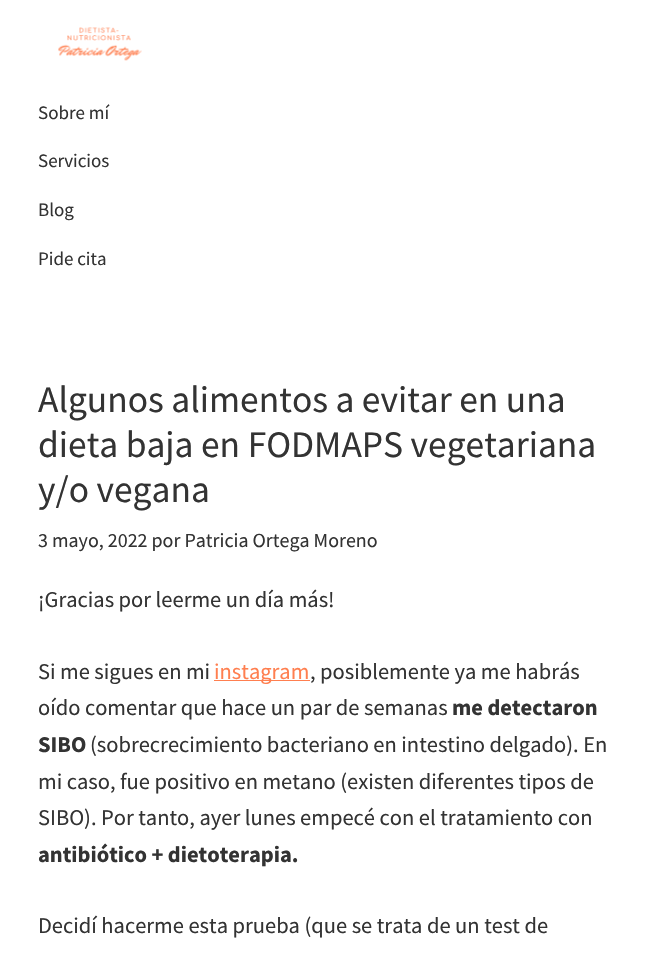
void draw(SkCanvas* canvas) {
  SkPaint paint;
  paint.setAntiAlias(true);
  auto face = [&](const char* family, int weight, float size, bool italic = false) {
    SkFontStyle style(weight, SkFontStyle::kNormal_Width,
      italic ? SkFontStyle::kItalic_Slant : SkFontStyle::kUpright_Slant);
    SkFont result(fontMgr->matchFamilyStyle(family, style), size);
    result.setSubpixel(true);
    return result;
  };
  auto paste = [&](const char* path, float x, float y, float w, float h) {
    auto image = SkImages::DeferredFromEncodedData(SkData::MakeFromFileName(path));
    canvas->drawImageRect(image, SkRect::MakeXYWH(x, y, w, h), SkSamplingOptions());
  };
  canvas->clear(0xffffffff);
  paste("img/1.png", 58, 27, 84, 34);
  paint.setColor(0xffff7f50);
  canvas->drawRect(SkRect::MakeXYWH(214, 680, 96, 1), paint);
  auto f0 = face("Source Sans Pro", 400, 19);
  paint.setColor(0xff333333);
  {
    const struct { const char* s; float x, y; } items[] = {
      {"Sobre mí", 38, 119},
      {"Servicios", 38, 167},
      {"Blog", 38, 216},
      {"Pide cita", 38, 265},
    };
    for (auto [s, x, y] : items) {
      canvas->drawString(s, x, y, f0, paint);
    }
  }
  auto f1 = face("Source Sans Pro", 400, 37.5f);
  {
    const struct { const char* s; float x, y; } items[] = {
      {"Algunos alimentos a evitar en una", 38, 412},
      {"dieta baja en FODMAPS vegetariana", 38, 457},
      {"y/o vegana", 38, 502},
    };
    for (auto [s, x, y] : items) {
      canvas->drawString(s, x, y, f1, paint);
    }
  }
  auto f2 = face("Source Sans Pro", 400, 20);
  canvas->drawString("3 mayo, 2022 por Patricia Ortega Moreno", 38, 547, f2, paint);
  auto f3 = face("Source Sans Pro", 400, 22.5f);
  canvas->drawString("¡Gracias por leerme un día más!", 38, 607, f3, paint);
  canvas->drawString("Si me sigues en mi", 38, 679, f3, paint);
  paint.setColor(0xffff7f50);
  canvas->drawString("instagram", 214, 679, f3, paint);
  paint.setColor(0xff333333);
  canvas->drawString(", posiblemente ya me habrás", 310, 679, f3, paint);
  canvas->drawString("oído comentar que hace un par de semanas", 38, 715, f3, paint);
  auto f4 = face("Source Sans Pro", 700, 22.5f);
  canvas->drawString("me detectaron", 452, 715, f4, paint);
  canvas->drawString("SIBO", 38, 752, f4, paint);
  {
    const struct { const char* s; float x, y; } items[] = {
      {"(sobrecrecimiento bacteriano en intestino delgado). En", 90, 752},
      {"mi caso, fue positivo en metano (existen diferentes tipos de", 38, 789},
      {"SIBO). Por tanto, ayer lunes empecé con el tratamiento con", 38, 825},
    };
    for (auto [s, x, y] : items) {
      canvas->drawString(s, x, y, f3, paint);
    }
  }
  canvas->drawString("antibiótico + dietoterapia.", 38, 862, f4, paint);
  canvas->drawString("Decidí hacerme esta prueba (que se trata de un test de", 38, 933, f3, paint);
}
